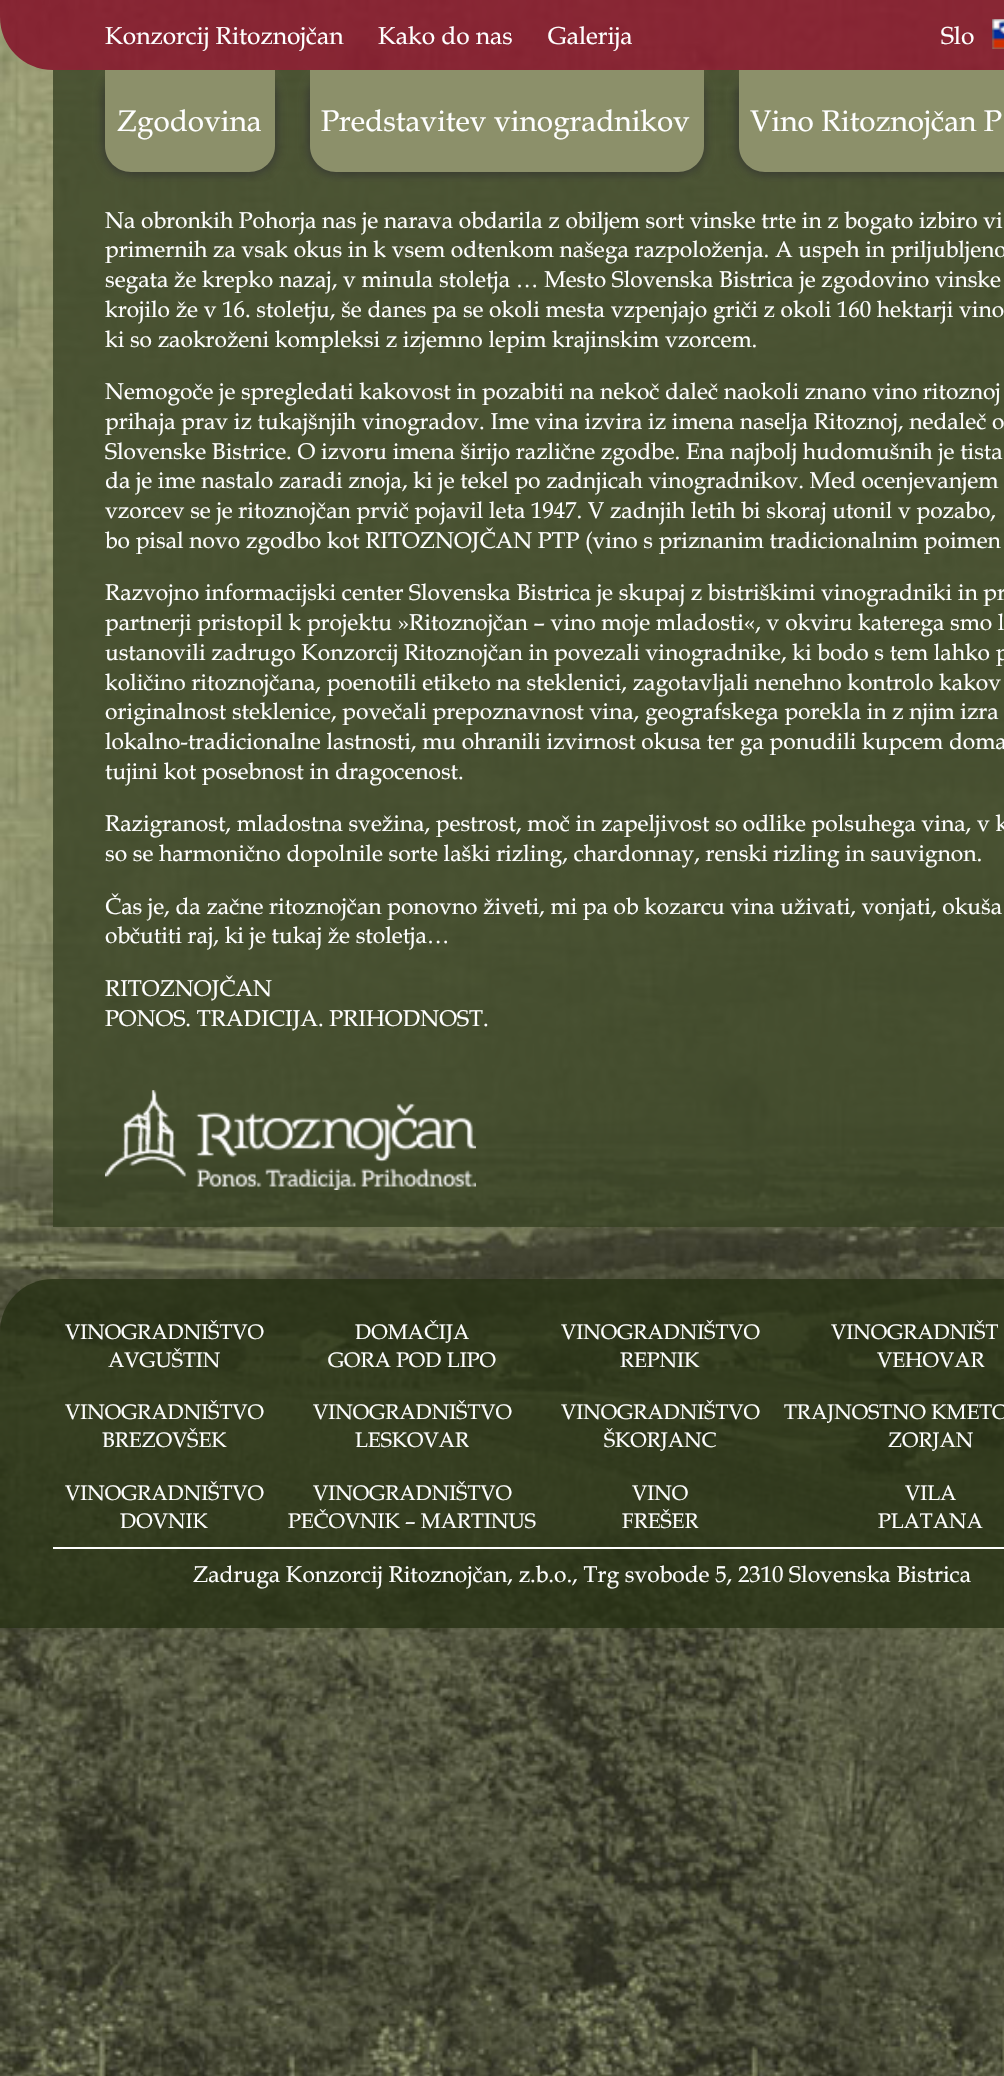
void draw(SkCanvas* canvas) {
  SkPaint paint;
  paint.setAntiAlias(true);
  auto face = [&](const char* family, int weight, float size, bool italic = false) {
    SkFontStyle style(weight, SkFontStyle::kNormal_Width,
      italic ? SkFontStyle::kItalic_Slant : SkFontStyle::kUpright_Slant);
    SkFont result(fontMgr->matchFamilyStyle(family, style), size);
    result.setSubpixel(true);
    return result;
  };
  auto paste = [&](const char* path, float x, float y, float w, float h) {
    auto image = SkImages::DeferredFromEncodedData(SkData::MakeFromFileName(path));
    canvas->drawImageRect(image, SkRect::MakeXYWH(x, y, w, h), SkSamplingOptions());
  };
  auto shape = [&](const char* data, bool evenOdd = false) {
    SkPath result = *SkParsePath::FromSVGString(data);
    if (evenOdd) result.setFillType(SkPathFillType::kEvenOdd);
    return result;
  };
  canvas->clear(0xffffffff);
  paste("img/1.png", 0, 0, 1004, 2076);
  paint.setColor(0xcc820723);
  canvas->drawPath(shape("M0 0H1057V70H53C23.5 70 0 46.5 0 17Z"), paint);
  paste("img/2.png", 992, 19, 12, 30);
  paint.setColor(0xcc364022);
  canvas->drawRect(SkRect::MakeXYWH(53, 70, 951, 1157), paint);
  canvas->save();
  canvas->clipRect(SkRect::MakeXYWH(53, 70, 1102, 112));
  paint.setColor(0xbf323232);
  paint.setMaskFilter(SkMaskFilter::MakeBlur(kNormal_SkBlurStyle, 5));
  canvas->drawRoundRect(SkRect::MakeXYWH(103, 70, 174, 105), 28, 28, paint);
  paint.setMaskFilter(nullptr);
  canvas->restore();
  paint.setColor(0xff8c906a);
  canvas->drawPath(shape("M105 70H275V146C275 160.5 263.5 172 249 172H131C116.5 172 105 160.5 105 146Z"), paint);
  canvas->save();
  canvas->clipRect(SkRect::MakeXYWH(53, 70, 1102, 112));
  paint.setColor(0xbf323232);
  paint.setMaskFilter(SkMaskFilter::MakeBlur(kNormal_SkBlurStyle, 5));
  canvas->drawRoundRect(SkRect::MakeXYWH(308, 70, 397, 105), 28, 28, paint);
  paint.setMaskFilter(nullptr);
  canvas->restore();
  paint.setColor(0xff8c906a);
  canvas->drawPath(shape("M310 70H704V146C704 160.5 692.5 172 678 172H336C321.5 172 310 160.5 310 146Z"), paint);
  canvas->save();
  canvas->clipRect(SkRect::MakeXYWH(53, 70, 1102, 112));
  paint.setColor(0xbf323232);
  paint.setMaskFilter(SkMaskFilter::MakeBlur(kNormal_SkBlurStyle, 5));
  canvas->drawRoundRect(SkRect::MakeXYWH(737, 70, 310, 105), 28, 28, paint);
  paint.setMaskFilter(nullptr);
  canvas->restore();
  paint.setColor(0xff8c906a);
  canvas->drawPath(shape("M739 70H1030V146C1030 160.5 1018.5 172 1004 172H765C750.5 172 739 160.5 739 146Z"), paint);
  paste("img/3.png", 105, 1090, 371, 100);
  paint.setColor(0xcc263013);
  canvas->drawPath(shape("M53 1279H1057V1628H0V1332C0 1302.5 23.5 1279 53 1279Z"), paint);
  paint.setColor(0xffffffff);
  canvas->drawRect(SkRect::MakeXYWH(53, 1547, 951, 2), paint);
  auto f0 = face("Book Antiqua", 400, 24.5f);
  {
    const struct { const char* s; float x, y; } items[] = {
      {"Konzorcij Ritoznojčan", 105, 44},
      {"Kako do nas", 378, 44},
      {"Galerija", 548, 44},
      {"Slo", 941, 44},
    };
    for (auto [s, x, y] : items) {
      canvas->drawString(s, x, y, f0, paint);
    }
  }
  auto f1 = face("Book Antiqua", 400, 29.75f);
  {
    const struct { const char* s; float x, y; } items[] = {
      {"Zgodovina", 117, 131},
      {"Predstavitev vinogradnikov", 321, 131},
      {"Vino Ritoznojčan P", 750, 131},
    };
    for (auto [s, x, y] : items) {
      canvas->drawString(s, x, y, f1, paint);
    }
  }
  auto f2 = face("Book Antiqua", 400, 22.75f);
  {
    const struct { const char* s; float x, y; } items[] = {
      {"Na obronkih Pohorja nas je narava obdarila z obiljem sort vinske trte in z bogato izbiro vi", 105, 228},
      {"primernih za vsak okus in k vsem odtenkom našega razpoloženja. A uspeh in priljubljeno", 105, 257},
      {"segata že krepko nazaj, v minula stoletja … Mesto Slovenska Bistrica je zgodovino vinske", 105, 287},
      {"krojilo že v 16. stoletju, še danes pa se okoli mesta vzpenjajo griči z okoli 160 hektarji vino", 105, 317},
      {"ki so zaokroženi kompleksi z izjemno lepim krajinskim vzorcem.", 105, 347},
      {"Nemogoče je spregledati kakovost in pozabiti na nekoč daleč naokoli znano vino ritoznoj", 105, 399},
      {"prihaja prav iz tukajšnjih vinogradov. Ime vina izvira iz imena naselja Ritoznoj, nedaleč o", 105, 429},
      {"Slovenske Bistrice. O izvoru imena širijo različne zgodbe. Ena najbolj hudomušnih je tista", 105, 459},
      {"da je ime nastalo zaradi znoja, ki je tekel po zadnjicah vinogradnikov. Med ocenjevanjem", 105, 488},
      {"vzorcev se je ritoznojčan prvič pojavil leta 1947. V zadnjih letih bi skoraj utonil v pozabo,", 105, 518},
      {"bo pisal novo zgodbo kot RITOZNOJČAN PTP (vino s priznanim tradicionalnim poimen", 105, 548},
      {"Razvojno informacijski center Slovenska Bistrica je skupaj z bistriškimi vinogradniki in pr", 105, 600},
      {"partnerji pristopil k projektu »Ritoznojčan – vino moje mladosti«, v okviru katerega smo l", 105, 630},
      {"ustanovili zadrugo Konzorcij Ritoznojčan in povezali vinogradnike, ki bodo s tem lahko p", 105, 660},
      {"količino ritoznojčana, poenotili etiketo na steklenici, zagotavljali nenehno kontrolo kakov", 105, 690},
      {"originalnost steklenice, povečali prepoznavnost vina, geografskega porekla in z njim izra", 105, 719},
      {"lokalno-tradicionalne lastnosti, mu ohranili izvirnost okusa ter ga ponudili kupcem doma", 105, 749},
      {"tujini kot posebnost in dragocenost.", 105, 779},
      {"Razigranost, mladostna svežina, pestrost, moč in zapeljivost so odlike polsuhega vina, v k", 105, 831},
      {"so se harmonično dopolnile sorte laški rizling, chardonnay, renski rizling in sauvignon.", 105, 861},
      {"Čas je, da začne ritoznojčan ponovno živeti, mi pa ob kozarcu vina uživati, vonjati, okuša", 105, 914},
      {"občutiti raj, ki je tukaj že stoletja…", 105, 943},
      {"RITOZNOJČAN", 105, 996},
      {"PONOS. TRADICIJA. PRIHODNOST.", 105, 1026},
    };
    for (auto [s, x, y] : items) {
      canvas->drawString(s, x, y, f2, paint);
    }
  }
  auto f3 = face("Book Antiqua", 400, 21);
  {
    const struct { const char* s; float x, y; } items[] = {
      {"VINOGRADNIŠTVO", 65, 1339},
      {"AVGUŠTIN", 108, 1367},
      {"VINOGRADNIŠTVO", 65, 1419},
      {"BREZOVŠEK", 102, 1447},
      {"VINOGRADNIŠTVO", 65, 1500},
      {"DOVNIK", 120, 1528},
      {"DOMAČIJA", 355, 1339},
      {"GORA POD LIPO", 328, 1367},
      {"VINOGRADNIŠTVO", 313, 1419},
      {"LESKOVAR", 355, 1447},
      {"VINOGRADNIŠTVO", 313, 1500},
      {"PEČOVNIK – MARTINUS", 288, 1528},
      {"VINOGRADNIŠTVO", 561, 1339},
      {"REPNIK", 620, 1367},
      {"VINOGRADNIŠTVO", 561, 1419},
      {"ŠKORJANC", 604, 1447},
      {"VINO", 632, 1500},
      {"FREŠER", 622, 1528},
      {"VINOGRADNIŠT", 831, 1339},
      {"VEHOVAR", 877, 1367},
      {"TRAJNOSTNO KMETO", 784, 1419},
      {"ZORJAN", 888, 1447},
      {"VILA", 905, 1500},
      {"PLATANA", 878, 1528},
    };
    for (auto [s, x, y] : items) {
      canvas->drawString(s, x, y, f3, paint);
    }
  }
  canvas->drawString("Zadruga Konzorcij Ritoznojčan, z.b.o., Trg svobode 5, 2310 Slovenska Bistrica", 193, 1582, f2, paint);
}
